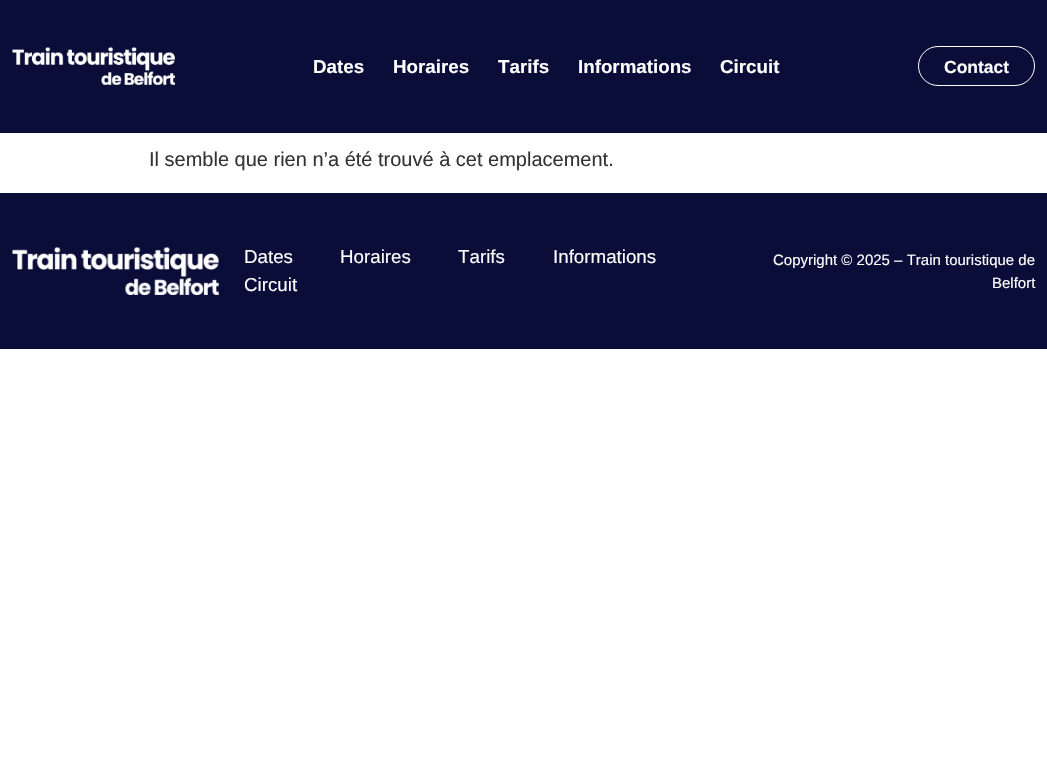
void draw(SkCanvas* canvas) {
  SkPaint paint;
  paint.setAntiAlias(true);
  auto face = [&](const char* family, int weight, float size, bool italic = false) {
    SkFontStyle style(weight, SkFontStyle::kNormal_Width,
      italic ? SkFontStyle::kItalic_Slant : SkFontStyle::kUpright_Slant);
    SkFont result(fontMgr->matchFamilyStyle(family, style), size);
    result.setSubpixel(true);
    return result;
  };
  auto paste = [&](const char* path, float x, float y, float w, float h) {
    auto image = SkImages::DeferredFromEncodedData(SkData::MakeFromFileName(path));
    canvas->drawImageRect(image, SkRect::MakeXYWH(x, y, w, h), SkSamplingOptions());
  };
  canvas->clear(0xffffffff);
  paint.setColor(0xff0b0d39);
  canvas->drawRect(SkRect::MakeXYWH(0, 0, 1047, 133), paint);
  paste("img/1.png", 12, 47, 163, 38);
  paint.setStroke(true);
  paint.setStrokeWidth(1);
  paint.setColor(0xffffffff);
  canvas->drawRoundRect(SkRect::MakeXYWH(918.5f, 46.5f, 116, 39), 19.5f, 19.5f, paint);
  paint.setStroke(false);
  paint.setColor(0xff0b0d39);
  canvas->drawRect(SkRect::MakeXYWH(0, 193, 1047, 156), paint);
  paste("img/2.png", 12, 247, 207, 48);
  auto f0 = face("Liberation Sans", 700, 18.75f);
  paint.setColor(0xffffffff);
  {
    const struct { const char* s; float x, y; } items[] = {
      {"Dates", 313, 73},
      {"Horaires", 393, 73},
      {"Tarifs", 498, 73},
      {"Informations", 578, 73},
      {"Circuit", 720, 73},
    };
    for (auto [s, x, y] : items) {
      canvas->drawString(s, x, y, f0, paint);
    }
  }
  auto f1 = face("Liberation Sans", 700, 17.5f);
  canvas->drawString("Contact", 944, 73, f1, paint);
  auto f2 = face("Liberation Sans", 400, 20);
  paint.setColor(0xff333333);
  canvas->drawString("Il semble que rien n’a été trouvé à cet emplacement.", 149, 166, f2, paint);
  auto f3 = face("Liberation Sans", 400, 18.75f);
  paint.setColor(0xffffffff);
  {
    const struct { const char* s; float x, y; } items[] = {
      {"Dates", 244, 263},
      {"Horaires", 340, 263},
      {"Tarifs", 458, 263},
      {"Informations", 553, 263},
      {"Circuit", 244, 291},
    };
    for (auto [s, x, y] : items) {
      canvas->drawString(s, x, y, f3, paint);
    }
  }
  auto f4 = face("Liberation Sans", 400, 15);
  canvas->drawString("Copyright © 2025 – Train touristique de", 773, 265, f4, paint);
  canvas->drawString("Belfort", 992, 288, f4, paint);
}
